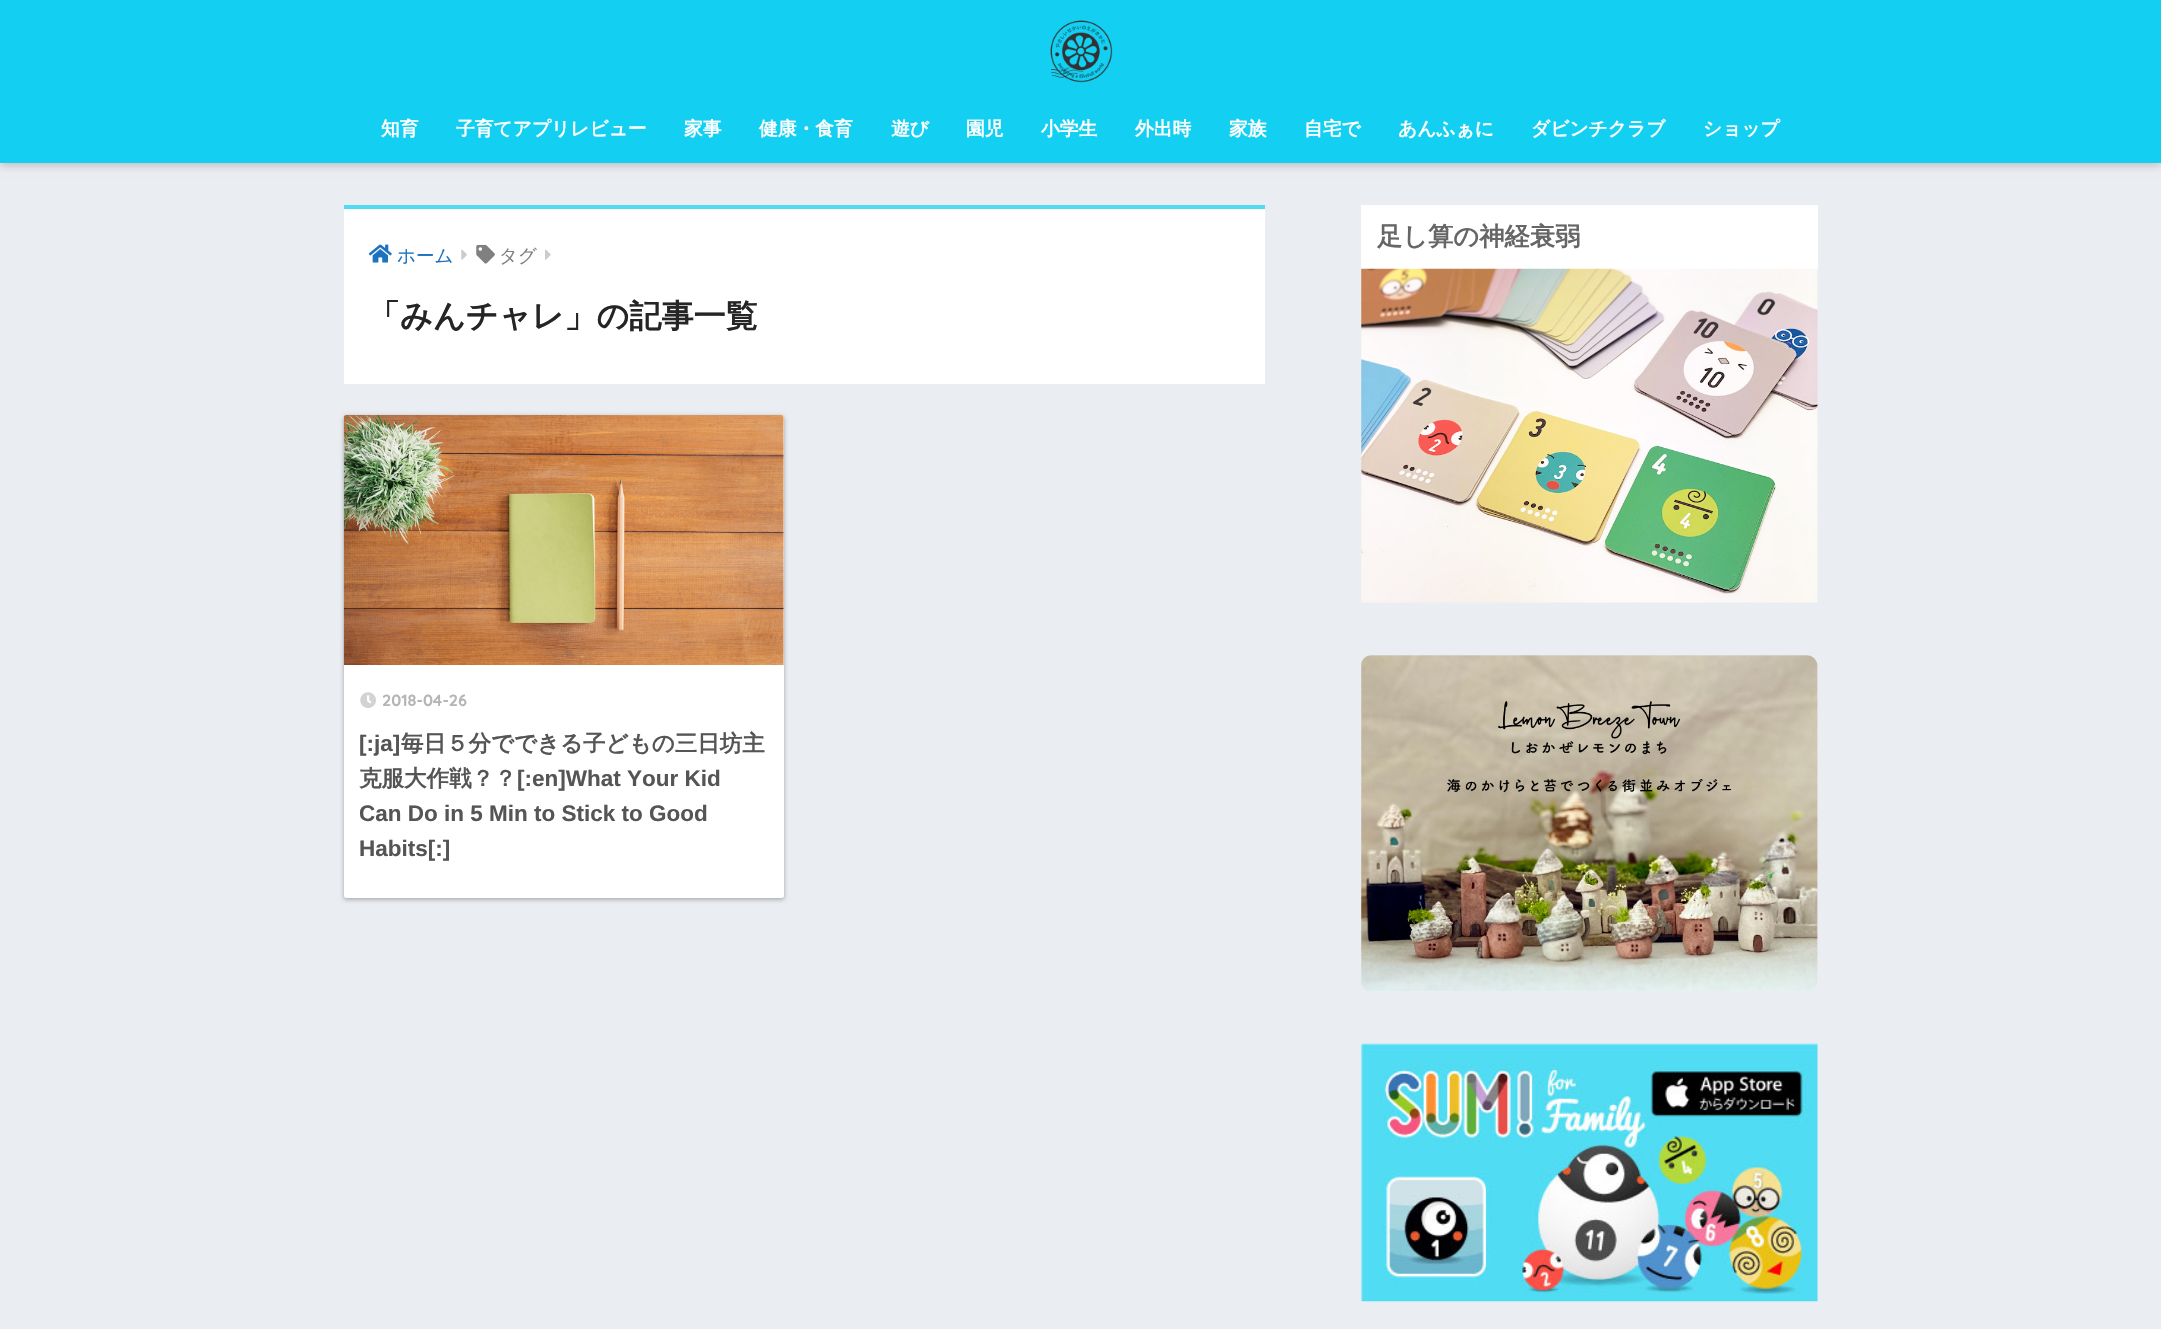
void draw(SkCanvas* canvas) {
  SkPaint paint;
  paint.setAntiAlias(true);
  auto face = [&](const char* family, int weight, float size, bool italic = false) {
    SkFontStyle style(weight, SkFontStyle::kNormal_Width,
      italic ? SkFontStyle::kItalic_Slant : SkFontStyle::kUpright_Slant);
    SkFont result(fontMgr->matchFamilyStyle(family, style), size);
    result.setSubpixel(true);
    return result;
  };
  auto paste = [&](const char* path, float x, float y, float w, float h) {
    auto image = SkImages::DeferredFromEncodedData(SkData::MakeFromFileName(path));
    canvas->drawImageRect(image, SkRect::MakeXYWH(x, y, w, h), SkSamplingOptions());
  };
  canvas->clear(0xffeaedf2);
  paint.setColor(0x2e000000);
  paint.setMaskFilter(SkMaskFilter::MakeBlur(kNormal_SkBlurStyle, 4));
  canvas->drawRect(SkRect::MakeXYWH(0, 4, 2161, 162), paint);
  paint.setMaskFilter(nullptr);
  paint.setColor(0xff13d0f2);
  canvas->drawRect(SkRect::MakeXYWH(0, 0, 2161, 163), paint);
  paste("img/1.png", 1050, 20, 63, 63);
  paint.setColor(0xffffffff);
  canvas->drawRect(SkRect::MakeXYWH(1361, 205, 457, 64), paint);
  paste("img/2.png", 1361, 268, 457, 335);
  paste("img/3.png", 1361, 655, 457, 336);
  paste("img/4.png", 1361, 1043, 457, 259);
  canvas->drawRect(SkRect::MakeXYWH(344, 209, 921, 175), paint);
  paint.setColor(0xff51dcf3);
  canvas->drawRect(SkRect::MakeXYWH(344, 205, 921, 4), paint);
  paste("img/5.png", 368, 244, 24, 19);
  paste("img/6.png", 461, 249, 6, 11);
  paste("img/7.png", 476, 244, 19, 20);
  paste("img/8.png", 545, 249, 6, 11);
  paint.setColor(0x38000000);
  paint.setMaskFilter(SkMaskFilter::MakeBlur(kNormal_SkBlurStyle, 2));
  canvas->drawRoundRect(SkRect::MakeXYWH(344, 418, 440, 482), 2.5f, 2.5f, paint);
  paint.setMaskFilter(nullptr);
  paint.setColor(0x1f000000);
  paint.setMaskFilter(SkMaskFilter::MakeBlur(kNormal_SkBlurStyle, 2));
  canvas->drawRoundRect(SkRect::MakeXYWH(344, 415, 440, 483), 2.5f, 2.5f, paint);
  paint.setMaskFilter(nullptr);
  paint.setColor(0xffffffff);
  canvas->drawRoundRect(SkRect::MakeXYWH(344, 415, 440, 483), 2.5f, 2.5f, paint);
  paste("img/9.png", 343, 415, 441, 250);
  paste("img/10.png", 360, 692, 16, 16);
  auto f0 = face("WenQuanYi Zen Hei", 700, 18.75f);
  {
    const struct { const char* s; float x, y; } items[] = {
      {"知育", 381, 135},
      {"子育てアプリレビュー", 456, 135},
      {"家事", 684, 135},
      {"健康・食育", 759, 135},
      {"遊び", 891, 135},
      {"園児", 966, 135},
      {"小学生", 1041, 135},
      {"外出時", 1135, 135},
      {"家族", 1229, 135},
      {"自宅で", 1304, 135},
      {"あんふぁに", 1398, 135},
      {"ダビンチクラブ", 1531, 135},
      {"ショップ", 1703, 135},
    };
    for (auto [s, x, y] : items) {
      canvas->drawString(s, x, y, f0, paint);
    }
  }
  auto f1 = face("WenQuanYi Zen Hei", 700, 25.25f);
  paint.setColor(0xff666666);
  canvas->drawString("足し算の神経衰弱", 1377, 245, f1, paint);
  auto f2 = face("WenQuanYi Zen Hei", 500, 18.5f);
  paint.setColor(0xff1e73be);
  canvas->drawString("ホーム", 397, 262, f2, paint);
  paint.setColor(0xff808080);
  canvas->drawString("タグ", 499, 262, f2, paint);
  auto f3 = face("WenQuanYi Zen Hei", 700, 32.1f);
  paint.setColor(0xff252525);
  canvas->drawString("「みんチャレ」の記事一覧", 368, 327, f3, paint);
  auto f4 = face("Quicksand", 700, 16.25f);
  paint.setColor(0xffb5b5b5);
  canvas->drawString("2018-04-26", 382, 706, f4, paint);
  auto f5 = face("Liberation Sans", 700, 22.5f);
  paint.setColor(0xff555555);
  canvas->drawString("[:ja]", 359, 751, f5, paint);
  auto f6 = face("WenQuanYi Zen Hei", 700, 22.5f);
  canvas->drawString("毎日５分でできる子どもの三日坊主", 401, 751, f6, paint);
  canvas->drawString("克服大作戦？？", 359, 786, f6, paint);
  {
    const struct { const char* s; float x, y; } items[] = {
      {"[:en]What Your Kid", 517, 786},
      {"Can Do in 5 Min to Stick to Good", 359, 821},
      {"Habits[:]", 359, 856},
    };
    for (auto [s, x, y] : items) {
      canvas->drawString(s, x, y, f5, paint);
    }
  }
}
